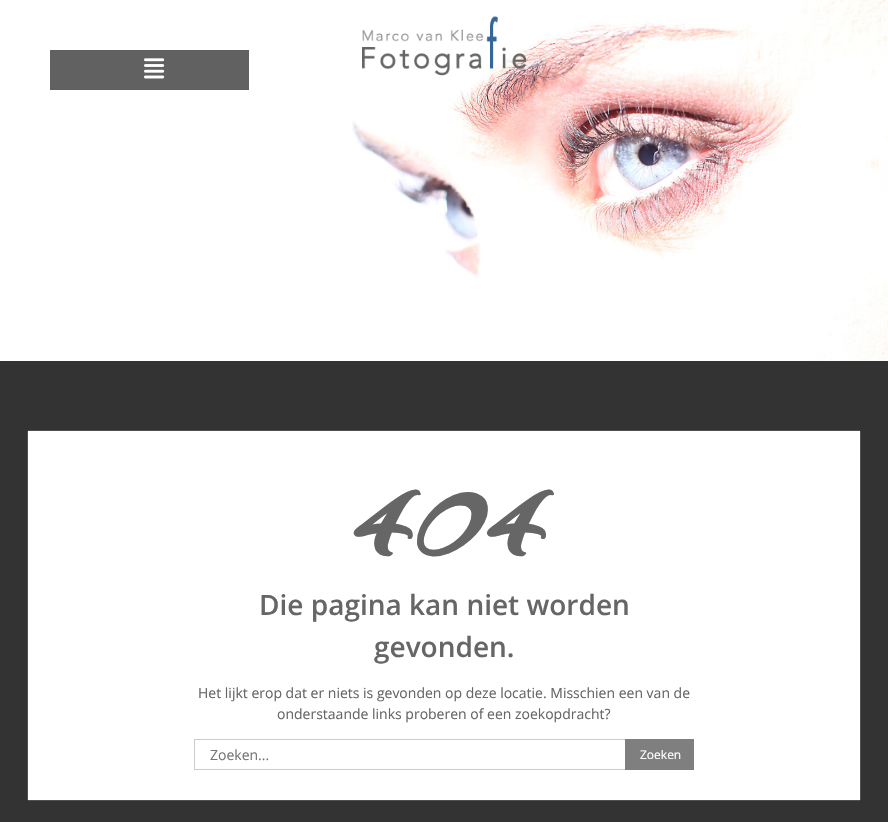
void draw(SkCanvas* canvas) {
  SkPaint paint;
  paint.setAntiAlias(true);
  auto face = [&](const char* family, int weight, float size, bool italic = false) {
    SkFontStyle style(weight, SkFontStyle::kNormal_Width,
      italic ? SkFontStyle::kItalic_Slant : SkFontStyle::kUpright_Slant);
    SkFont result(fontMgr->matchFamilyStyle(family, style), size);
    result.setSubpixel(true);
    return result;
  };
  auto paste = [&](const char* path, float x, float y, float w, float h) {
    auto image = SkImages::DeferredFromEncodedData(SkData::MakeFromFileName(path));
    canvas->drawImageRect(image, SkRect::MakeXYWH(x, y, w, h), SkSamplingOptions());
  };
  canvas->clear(0xff333333);
  paste("img/1.png", 0, 0, 888, 361);
  paint.setColor(0xff616161);
  canvas->drawRect(SkRect::MakeXYWH(50, 50, 199, 40), paint);
  paste("img/2.png", 144, 58, 21, 21);
  paste("img/3.png", 362, 16, 165, 60);
  paint.setColor(0xffdddddd);
  paint.setMaskFilter(SkMaskFilter::MakeBlur(kNormal_SkBlurStyle, 0.5f));
  canvas->drawRect(SkRect::MakeXYWH(28, 431, 832, 369), paint);
  paint.setMaskFilter(nullptr);
  paint.setColor(0xffffffff);
  canvas->drawRect(SkRect::MakeXYWH(28, 431, 832, 369), paint);
  paint.setStroke(true);
  paint.setStrokeWidth(1);
  paint.setColor(0xffcccccc);
  canvas->drawRect(SkRect::MakeXYWH(194.5f, 739.5f, 499, 30), paint);
  paint.setStroke(false);
  paint.setColor(0xff7f7f7f);
  canvas->drawRect(SkRect::MakeXYWH(625, 739, 69, 31), paint);
  auto f0 = face("Arizonia", 700, 127);
  paint.setColor(0xff666666);
  canvas->drawString("404", 346, 554, f0, paint);
  auto f1 = face("Open Sans", 600, 28);
  canvas->drawString("Die pagina kan niet worden", 259, 615, f1, paint);
  canvas->drawString("gevonden.", 374, 657, f1, paint);
  auto f2 = face("Open Sans", 400, 14);
  canvas->drawString("Het lijkt erop dat er niets is gevonden op deze locatie. Misschien een van de", 198, 698, f2, paint);
  canvas->drawString("onderstaande links proberen of een zoekopdracht?", 277, 719, f2, paint);
  paint.setColor(0xff757575);
  canvas->drawString("Zoeken...", 210, 760, f2, paint);
  auto f3 = face("Open Sans", 400, 12);
  paint.setColor(0xffffffff);
  canvas->drawString("Zoeken", 640, 759, f3, paint);
}
